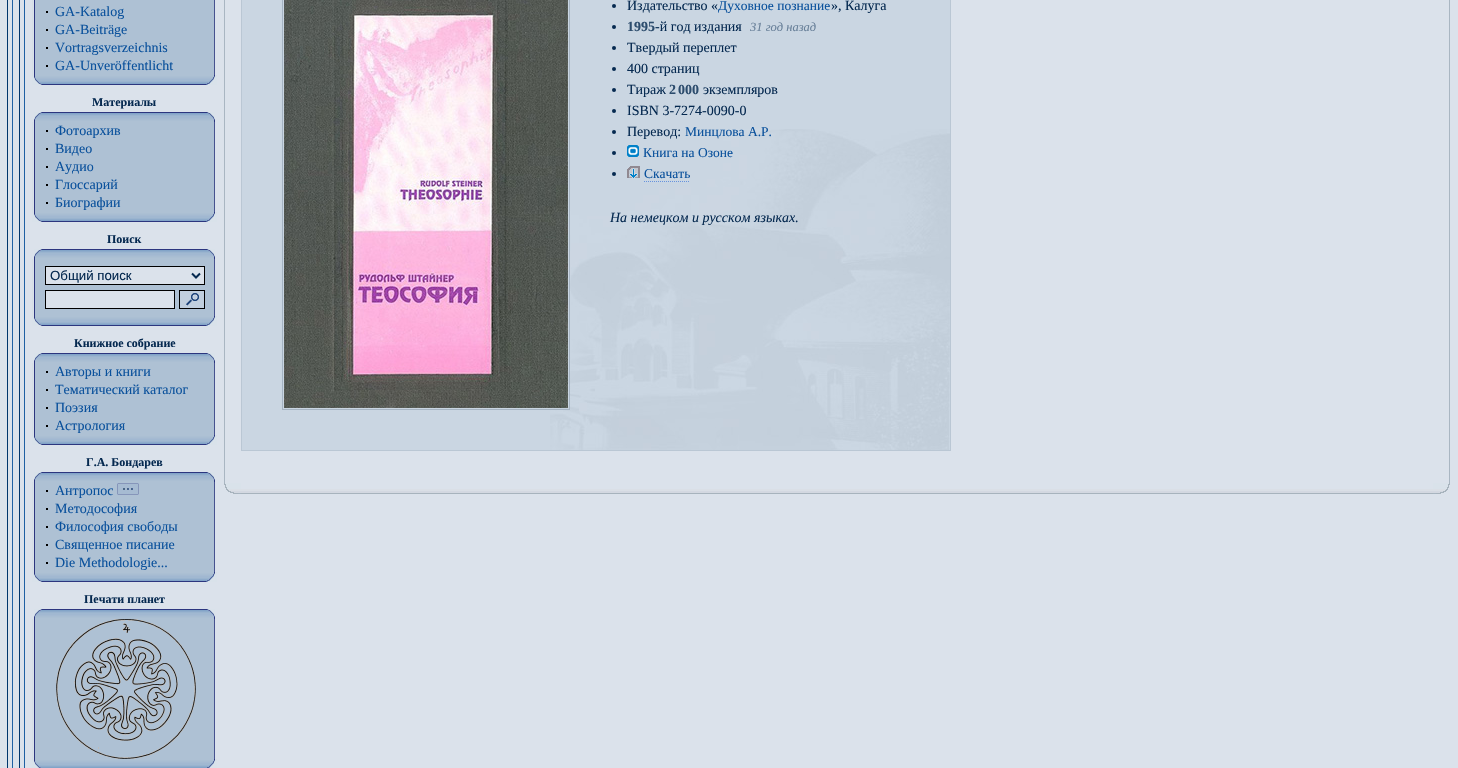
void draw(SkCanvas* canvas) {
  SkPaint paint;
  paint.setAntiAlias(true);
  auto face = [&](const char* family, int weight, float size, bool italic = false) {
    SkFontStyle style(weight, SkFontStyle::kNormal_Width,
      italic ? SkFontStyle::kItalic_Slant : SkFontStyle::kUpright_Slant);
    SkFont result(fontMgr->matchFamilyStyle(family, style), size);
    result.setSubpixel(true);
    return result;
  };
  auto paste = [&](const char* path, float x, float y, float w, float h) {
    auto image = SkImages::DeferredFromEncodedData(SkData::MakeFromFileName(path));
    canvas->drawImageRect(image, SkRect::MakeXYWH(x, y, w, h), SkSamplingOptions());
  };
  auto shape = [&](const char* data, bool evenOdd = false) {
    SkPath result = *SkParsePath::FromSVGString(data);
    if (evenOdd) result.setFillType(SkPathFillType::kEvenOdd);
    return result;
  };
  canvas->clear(0xffdbe2eb);
  paste("img/1.png", 7, 0, 18, 768);
  paste("img/2.png", 32, 0, 183, 75);
  {
    const struct { float x, y, w, h; SkColor color; } items[] = {
      {46, 11, 2, 2, 0xff000000},
      {46, 29, 2, 2, 0xff000000},
      {46, 47, 2, 2, 0xff000000},
      {46, 65, 2, 2, 0xff000000},
    };
    for (auto [x, y, w, h, color] : items) {
      paint.setColor(color);
      canvas->drawRect(SkRect::MakeXYWH(x, y, w, h), paint);
    }
  }
  paste("img/3.png", 32, 75, 185, 10);
  paste("img/4.png", 34, 112, 181, 10);
  paste("img/5.png", 32, 122, 183, 90);
  {
    const struct { float x, y, w, h; SkColor color; } items[] = {
      {46, 130, 2, 2, 0xff000000},
      {46, 148, 2, 2, 0xff000000},
      {46, 166, 2, 2, 0xff000000},
      {46, 184, 2, 2, 0xff000000},
      {46, 202, 2, 2, 0xff000000},
    };
    for (auto [x, y, w, h, color] : items) {
      paint.setColor(color);
      canvas->drawRect(SkRect::MakeXYWH(x, y, w, h), paint);
    }
  }
  paste("img/3.png", 32, 212, 185, 10);
  paste("img/4.png", 34, 249, 181, 10);
  paste("img/6.png", 32, 259, 183, 57);
  paint.setColor(0xffdbe2eb);
  canvas->drawRect(SkRect::MakeXYWH(45.5f, 266.5f, 159, 18), paint);
  paint.setStroke(true);
  paint.setStrokeWidth(1);
  paint.setColor(0xff000000);
  canvas->drawRect(SkRect::MakeXYWH(45.5f, 266.5f, 159, 18), paint);
  paint.setStrokeWidth(2);
  paint.setColor(0xff052950);
  canvas->drawPath(shape("M192 273.5L196 277.5L200 273.5"), paint);
  paint.setStroke(false);
  paint.setColor(0xffdbe2eb);
  canvas->drawRect(SkRect::MakeXYWH(45.5f, 290.5f, 129, 18), paint);
  paint.setStroke(true);
  paint.setStrokeWidth(1);
  paint.setColor(0xff000000);
  canvas->drawRect(SkRect::MakeXYWH(45.5f, 290.5f, 129, 18), paint);
  paint.setStroke(false);
  paint.setColor(0xffc1cfde);
  canvas->drawRect(SkRect::MakeXYWH(180, 291, 24, 17), paint);
  paste("img/7.png", 186, 293, 13, 13);
  paint.setStroke(true);
  paint.setColor(0xff000000);
  canvas->drawRect(SkRect::MakeXYWH(179.5f, 290.5f, 25, 18), paint);
  paste("img/3.png", 32, 316, 185, 10);
  paste("img/4.png", 34, 353, 181, 10);
  paste("img/8.png", 32, 363, 183, 72);
  paint.setStroke(false);
  {
    const struct { float x, y, w, h; SkColor color; } items[] = {
      {46, 371, 2, 2, 0xff000000},
      {46, 389, 2, 2, 0xff000000},
      {46, 407, 2, 2, 0xff000000},
      {46, 425, 2, 2, 0xff000000},
    };
    for (auto [x, y, w, h, color] : items) {
      paint.setColor(color);
      canvas->drawRect(SkRect::MakeXYWH(x, y, w, h), paint);
    }
  }
  paste("img/3.png", 32, 435, 185, 10);
  paste("img/4.png", 34, 472, 181, 10);
  paste("img/5.png", 32, 482, 183, 90);
  canvas->drawRect(SkRect::MakeXYWH(46, 490, 2, 2), paint);
  paste("img/9.png", 117, 483, 22, 12);
  {
    const struct { float x, y, w, h; SkColor color; } items[] = {
      {46, 508, 2, 2, 0xff000000},
      {46, 526, 2, 2, 0xff000000},
      {46, 544, 2, 2, 0xff000000},
      {46, 562, 2, 2, 0xff000000},
    };
    for (auto [x, y, w, h, color] : items) {
      paint.setColor(color);
      canvas->drawRect(SkRect::MakeXYWH(x, y, w, h), paint);
    }
  }
  paste("img/3.png", 32, 572, 185, 10);
  paste("img/4.png", 34, 609, 181, 10);
  paste("img/10.png", 32, 619, 183, 140);
  paste("img/11.png", 56, 619, 140, 140);
  paste("img/12.png", 32, 759, 185, 9);
  {
    const struct { float x, y, w, h; SkColor color; } items[] = {
      {224, 0, 1, 483, 0xffa9b6c2},
      {242, 0, 708, 450, 0xffcad6e2},
      {950, 0, 1, 451, 0xffbac7d4},
      {241, 450, 710, 1, 0xffbac7d4},
      {241, 0, 1, 451, 0xffbac7d4},
    };
    for (auto [x, y, w, h, color] : items) {
      paint.setColor(color);
      canvas->drawRect(SkRect::MakeXYWH(x, y, w, h), paint);
    }
  }
  paste("img/13.png", 550, 129, 400, 321);
  paint.setStroke(true);
  paint.setColor(0xffa6b4c3);
  canvas->drawRect(SkRect::MakeXYWH(282.5f, -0.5f, 287, 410), paint);
  paste("img/14.png", 284, 0, 284, 408);
  paint.setStroke(false);
  paint.setColor(0xff052950);
  canvas->drawCircle(614, 6, 2, paint);
  canvas->drawCircle(614, 27, 2, paint);
  canvas->drawCircle(614, 48, 2, paint);
  canvas->drawCircle(614, 69, 2, paint);
  canvas->drawCircle(614, 90, 2, paint);
  canvas->drawCircle(614, 111, 2, paint);
  canvas->drawCircle(614, 132, 2, paint);
  canvas->drawCircle(614, 153, 2, paint);
  paste("img/15.png", 627, 145, 12, 12);
  canvas->drawCircle(614, 174, 2, paint);
  paste("img/16.png", 627, 166, 13, 12);
  paint.setStroke(true);
  paint.setColor(0xff6793de);
  paint.setPathEffect(SkDashPathEffect::Make({{1, 1}}, 0));
  canvas->drawPath(shape("M644 181.5H690"), paint);
  paint.setPathEffect(nullptr);
  paint.setStroke(false);
  paint.setColor(0xffa9b6c2);
  canvas->drawRect(SkRect::MakeXYWH(1449, 0, 1, 483), paint);
  paste("img/17.png", 224, 483, 17, 11);
  paste("img/18.png", 241, 489, 1192, 5);
  paste("img/19.png", 1433, 483, 17, 11);
  auto f0 = face("Liberation Serif", 400, 14);
  paint.setColor(0xff0a519c);
  {
    const struct { const char* s; float x, y; } items[] = {
      {"GA-Katalog", 55, 16},
      {"GA-Beiträge", 55, 34},
      {"Vortragsverzeichnis", 55, 52},
      {"GA-Unveröffentlicht", 55, 70},
    };
    for (auto [s, x, y] : items) {
      canvas->drawString(s, x, y, f0, paint);
    }
  }
  auto f1 = face("Liberation Serif", 700, 12);
  paint.setColor(0xff052950);
  canvas->drawString("Материалы", 92, 106, f1, paint);
  paint.setColor(0xff0a519c);
  {
    const struct { const char* s; float x, y; } items[] = {
      {"Фотоархив", 55, 135},
      {"Видео", 55, 153},
      {"Аудио", 55, 171},
      {"Глоссарий", 55, 189},
      {"Биографии", 55, 207},
    };
    for (auto [s, x, y] : items) {
      canvas->drawString(s, x, y, f0, paint);
    }
  }
  paint.setColor(0xff052950);
  canvas->drawString("Поиск", 107, 243, f1, paint);
  auto f2 = face("Liberation Sans", 400, 13.25f);
  canvas->drawString("Общий поиск", 50, 280, f2, paint);
  canvas->drawString("Книжное собрание", 74, 347, f1, paint);
  paint.setColor(0xff0a519c);
  {
    const struct { const char* s; float x, y; } items[] = {
      {"Авторы и книги", 55, 376},
      {"Тематический каталог", 55, 394},
      {"Поэзия", 55, 412},
      {"Астрология", 55, 430},
    };
    for (auto [s, x, y] : items) {
      canvas->drawString(s, x, y, f0, paint);
    }
  }
  paint.setColor(0xff052950);
  canvas->drawString("Г.А. Бондарев", 86, 466, f1, paint);
  paint.setColor(0xff0a519c);
  {
    const struct { const char* s; float x, y; } items[] = {
      {"Антропос", 55, 495},
      {"Методософия", 55, 513},
      {"Философия cвободы", 55, 531},
      {"Священное писание", 55, 549},
      {"Die Methodologie...", 55, 567},
    };
    for (auto [s, x, y] : items) {
      canvas->drawString(s, x, y, f0, paint);
    }
  }
  paint.setColor(0xff052950);
  canvas->drawString("Печати планет", 84, 603, f1, paint);
  canvas->drawString("Издательство «", 627, 10, f0, paint);
  auto f3 = face("Liberation Serif", 400, 13.5f);
  paint.setColor(0xff0a519c);
  canvas->drawString("Духовное познание", 718, 10, f3, paint);
  paint.setColor(0xff052950);
  canvas->drawString("», Калуга", 831, 10, f0, paint);
  auto f4 = face("Liberation Serif", 700, 14);
  paint.setColor(0xff2c4c6d);
  canvas->drawString("1995", 627, 31, f4, paint);
  paint.setColor(0xff052950);
  canvas->drawString("-й год издания", 655, 31, f0, paint);
  auto f5 = face("Liberation Serif", 400, 12.5f, true);
  paint.setColor(0xff688099);
  canvas->drawString("31 год назад", 750, 31, f5, paint);
  paint.setColor(0xff052950);
  {
    const struct { const char* s; float x, y; } items[] = {
      {"Твердый переплет", 627, 52},
      {"400 страниц", 627, 73},
      {"Тираж", 627, 94},
    };
    for (auto [s, x, y] : items) {
      canvas->drawString(s, x, y, f0, paint);
    }
  }
  paint.setColor(0xff2c4c6d);
  canvas->drawString("2", 669, 94, f4, paint);
  canvas->drawString("000", 678, 94, f4, paint);
  paint.setColor(0xff052950);
  {
    const struct { const char* s; float x, y; } items[] = {
      {"экземпляров", 703, 94},
      {"ISBN 3-7274-0090-0", 627, 115},
      {"Перевод:", 627, 136},
    };
    for (auto [s, x, y] : items) {
      canvas->drawString(s, x, y, f0, paint);
    }
  }
  paint.setColor(0xff0a519c);
  {
    const struct { const char* s; float x, y; } items[] = {
      {"Минцлова А.Р.", 685, 136},
      {"Книга на Озоне", 643, 157},
      {"Скачать", 644, 178},
    };
    for (auto [s, x, y] : items) {
      canvas->drawString(s, x, y, f3, paint);
    }
  }
  auto f6 = face("Liberation Serif", 400, 14, true);
  paint.setColor(0xff052950);
  canvas->drawString("На немецком и русском языках.", 610, 222, f6, paint);
}
